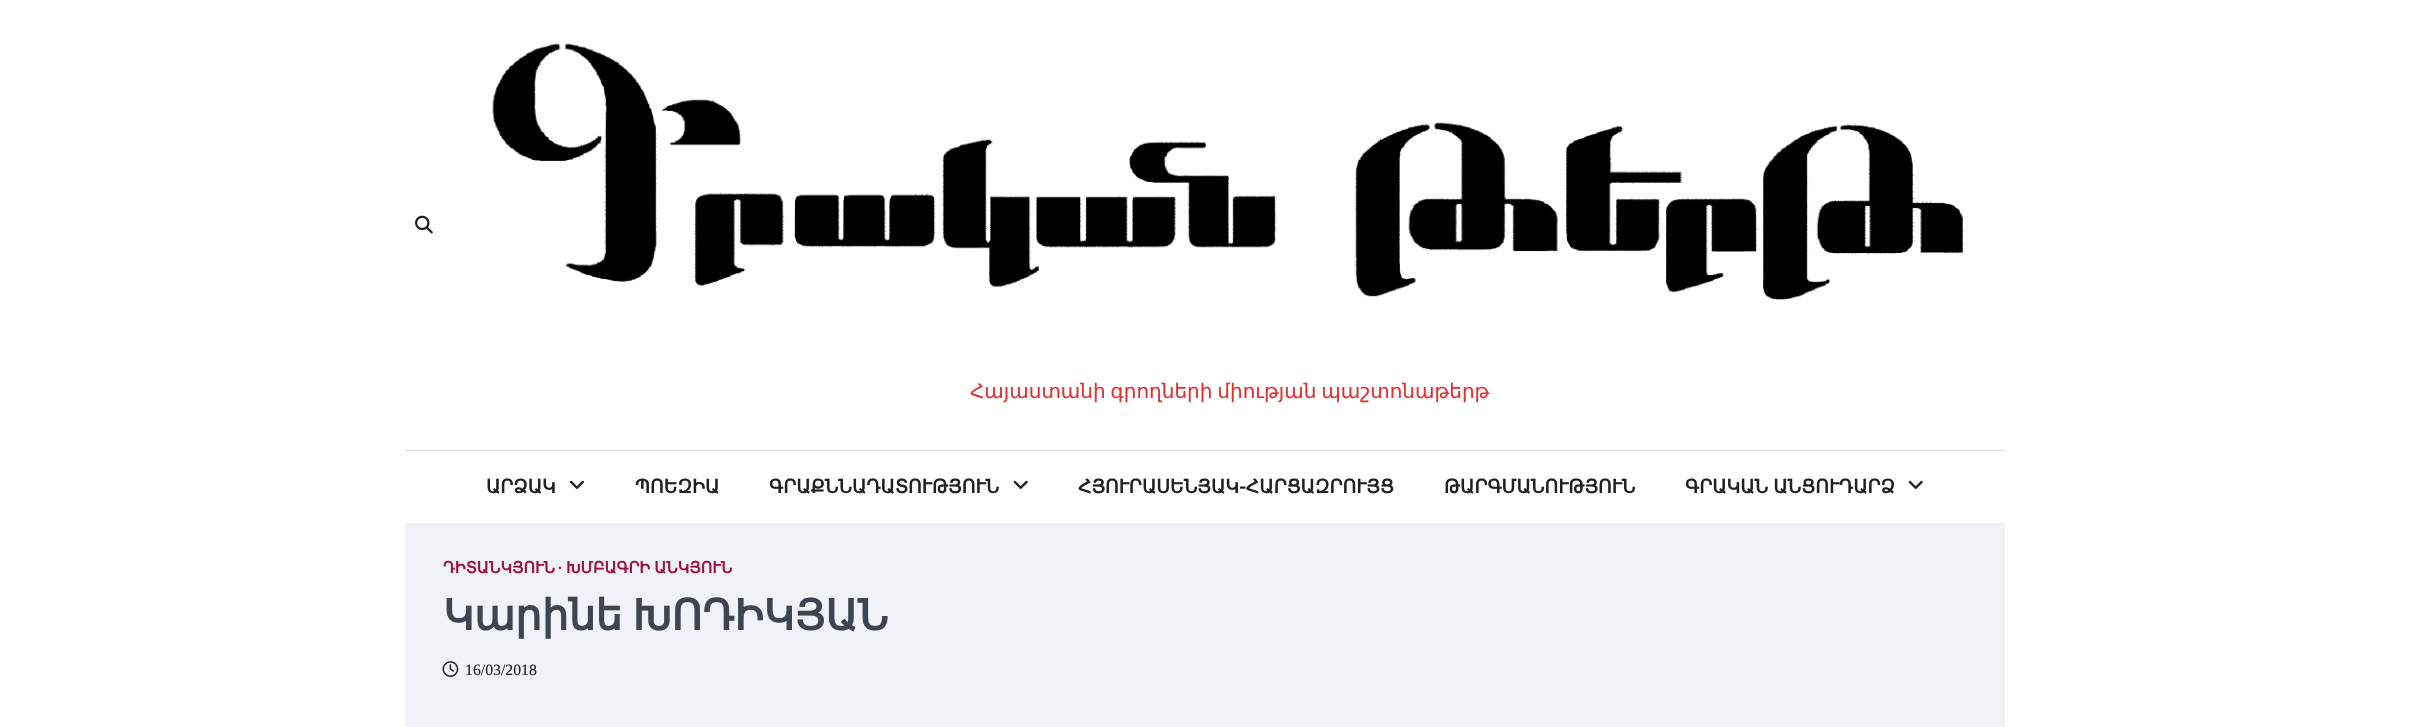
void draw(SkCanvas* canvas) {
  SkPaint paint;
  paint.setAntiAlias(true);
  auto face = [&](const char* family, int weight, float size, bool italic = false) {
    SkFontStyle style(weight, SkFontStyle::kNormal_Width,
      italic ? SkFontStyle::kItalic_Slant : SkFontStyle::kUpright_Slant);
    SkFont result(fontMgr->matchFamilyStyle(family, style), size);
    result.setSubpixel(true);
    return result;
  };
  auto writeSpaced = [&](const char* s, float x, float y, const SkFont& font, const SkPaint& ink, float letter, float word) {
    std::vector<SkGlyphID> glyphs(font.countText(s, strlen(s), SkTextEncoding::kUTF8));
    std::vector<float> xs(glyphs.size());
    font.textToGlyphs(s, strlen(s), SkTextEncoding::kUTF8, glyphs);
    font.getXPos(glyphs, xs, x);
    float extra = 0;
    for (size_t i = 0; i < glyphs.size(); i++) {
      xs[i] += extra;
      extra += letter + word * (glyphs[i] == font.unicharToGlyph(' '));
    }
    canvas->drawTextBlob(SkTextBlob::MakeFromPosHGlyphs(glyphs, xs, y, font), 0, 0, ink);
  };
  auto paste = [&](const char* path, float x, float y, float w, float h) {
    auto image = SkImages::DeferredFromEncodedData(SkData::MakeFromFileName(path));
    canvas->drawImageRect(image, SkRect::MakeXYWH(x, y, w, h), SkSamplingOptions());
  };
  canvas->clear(0xffffffff);
  paste("img/1.png", 415, 215, 18, 19);
  paste("img/2.png", 492, 43, 1472, 257);
  paint.setColor(0xffdedede);
  canvas->drawRect(SkRect::MakeXYWH(405, 450, 1600, 1), paint);
  paste("img/3.png", 570, 480, 14, 9);
  paste("img/4.png", 1013, 480, 15, 9);
  paste("img/4.png", 1908, 480, 15, 9);
  paint.setColor(0xfff0f2f7);
  canvas->drawRect(SkRect::MakeXYWH(405, 523, 1600, 204), paint);
  paste("img/5.png", 442, 661, 17, 16);
  auto f0 = face("DejaVu Sans", 400, 20);
  paint.setColor(0xffdd3333);
  writeSpaced("Հայաստանի գրողների միության պաշտոնաթերթ", 970, 398, f0, paint, 0, -1.5f);
  auto f1 = face("DejaVu Sans", 700, 18.75f);
  paint.setColor(0xff202124);
  {
    const struct { const char* s; float x, y; } items[] = {
      {"ԱՐՁԱԿ", 486, 493},
      {"ՊՈԵԶԻԱ", 635, 493},
      {"ԳՐԱՔՆՆԱԴԱՏՈՒԹՅՈՒՆ", 769, 493},
      {"ՀՅՈՒՐԱՍԵՆՅԱԿ-ՀԱՐՑԱԶՐՈՒՅՑ", 1078, 493},
      {"ԹԱՐԳՄԱՆՈՒԹՅՈՒՆ", 1444, 493},
    };
    for (auto [s, x, y] : items) {
      canvas->drawString(s, x, y, f1, paint);
    }
  }
  writeSpaced("ԳՐԱԿԱՆ ԱՆՑՈՒԴԱՐՁ", 1685, 493, f1, paint, 0, -1);
  auto f2 = face("DejaVu Sans", 700, 15.75f);
  paint.setColor(0xff9e1140);
  canvas->drawString("ԴԻՏԱՆԿՅՈՒՆ", 443, 573, f2, paint);
  auto f3 = face("Liberation Serif", 700, 15.75f);
  canvas->drawString("∙", 558, 573, f3, paint);
  writeSpaced("ԽՄԲԱԳՐԻ ԱՆԿՅՈՒՆ", 566, 573, f2, paint, 0, -1);
  auto f4 = face("DejaVu Sans", 700, 42.25f);
  paint.setColor(0xff3d4452);
  writeSpaced("Կարինե ԽՈԴԻԿՅԱՆ", 443, 630, f4, paint, 0, -3);
  auto f5 = face("Liberation Serif", 400, 15.75f);
  paint.setColor(0xff202124);
  canvas->drawString("16/03/2018", 465, 675, f5, paint);
}
